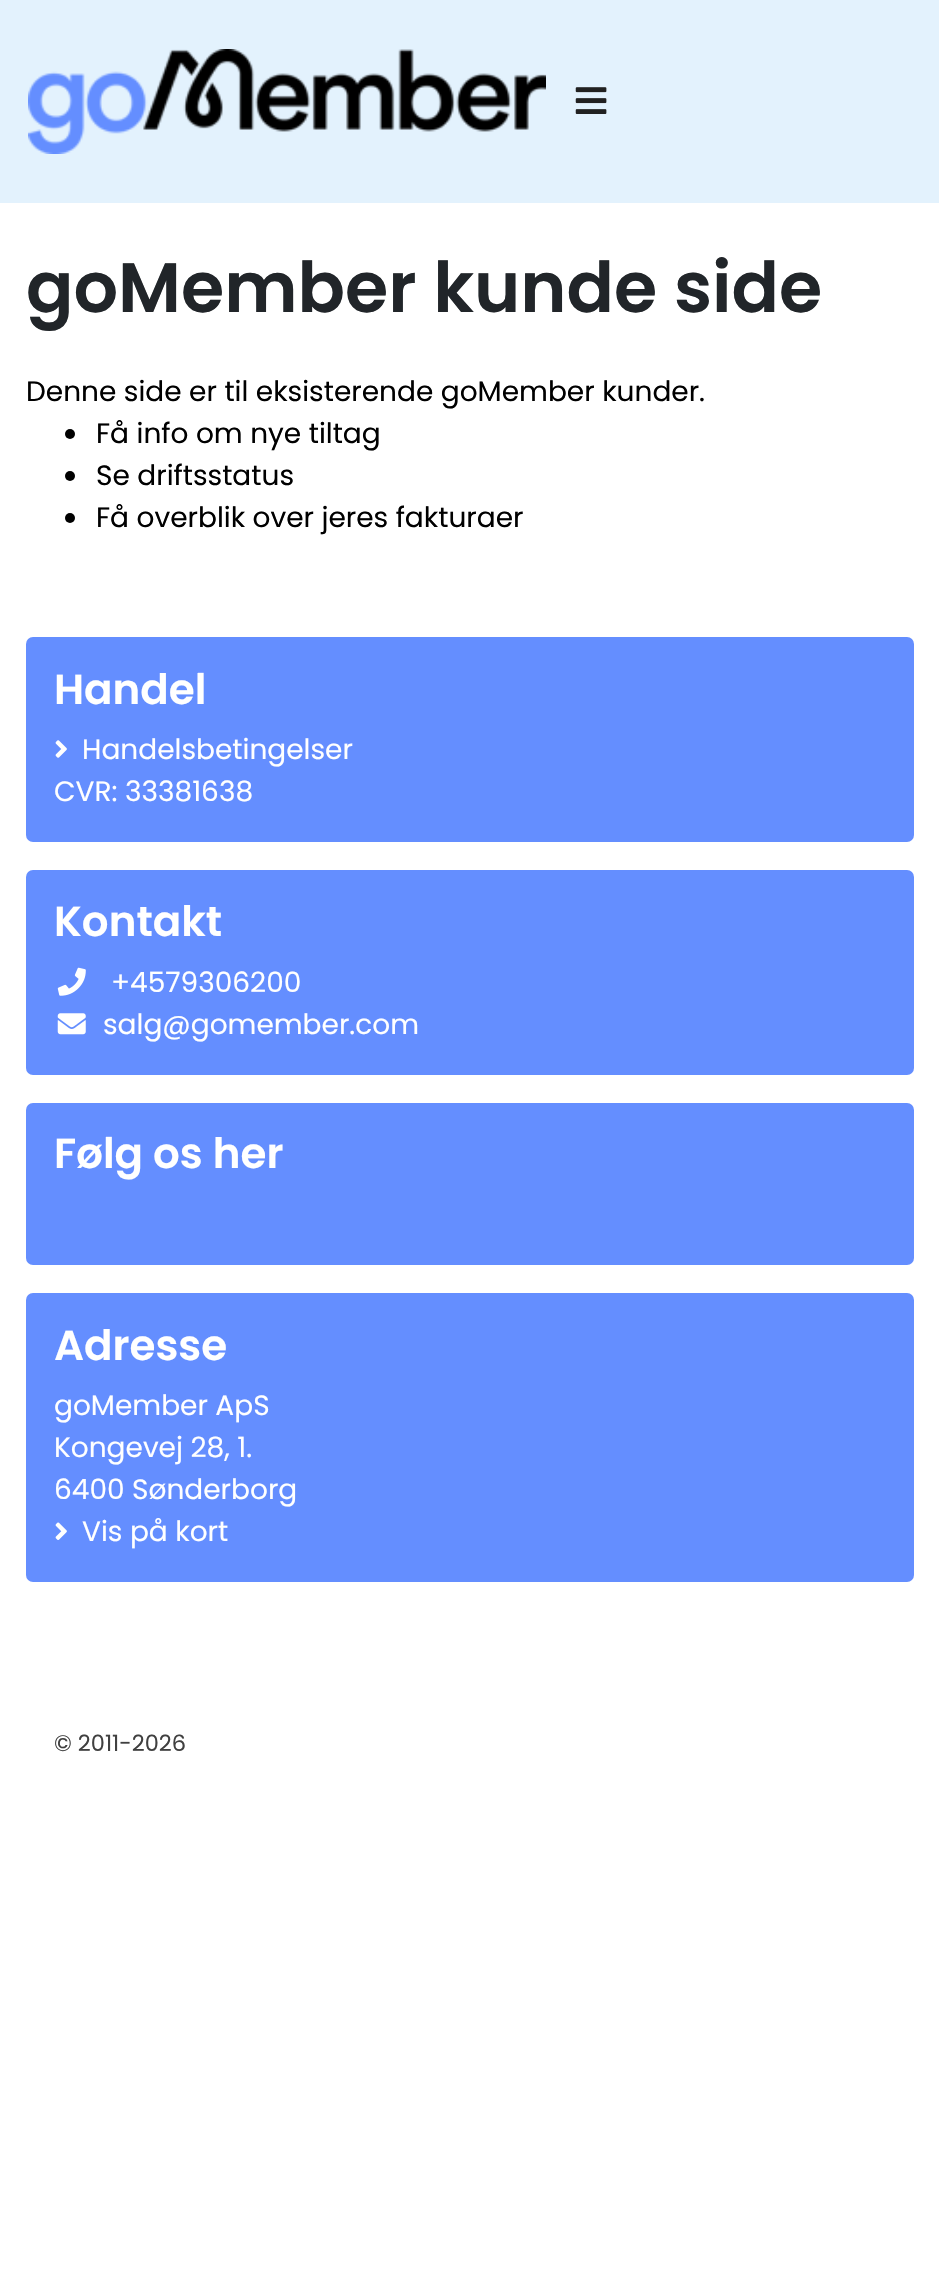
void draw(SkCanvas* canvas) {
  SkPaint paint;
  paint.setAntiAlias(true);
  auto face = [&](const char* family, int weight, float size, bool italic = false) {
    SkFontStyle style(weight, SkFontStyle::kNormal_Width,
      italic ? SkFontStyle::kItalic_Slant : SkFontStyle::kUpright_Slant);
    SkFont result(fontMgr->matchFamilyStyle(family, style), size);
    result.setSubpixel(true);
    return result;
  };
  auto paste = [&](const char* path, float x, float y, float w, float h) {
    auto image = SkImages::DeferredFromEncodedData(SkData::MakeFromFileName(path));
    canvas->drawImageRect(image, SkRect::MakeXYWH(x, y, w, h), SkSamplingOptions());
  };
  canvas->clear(0xffffffff);
  paint.setColor(0xffe3f2fd);
  canvas->drawRect(SkRect::MakeXYWH(0, 0, 939, 203), paint);
  paste("img/1.png", 28, 49, 518, 105);
  paste("img/2.png", 575, 87, 32, 27);
  paint.setColor(0xff000000);
  canvas->drawCircle(70, 434, 5, paint);
  canvas->drawCircle(70, 476, 5, paint);
  canvas->drawCircle(70, 518, 5, paint);
  paint.setColor(0xff648eff);
  canvas->drawRoundRect(SkRect::MakeXYWH(26, 637, 888, 205), 7, 7, paint);
  paste("img/3.png", 55, 740, 12, 18);
  canvas->drawRoundRect(SkRect::MakeXYWH(26, 870, 888, 205), 7, 7, paint);
  paste("img/4.png", 57, 967, 29, 29);
  paste("img/5.png", 57, 1013, 29, 22);
  canvas->drawRoundRect(SkRect::MakeXYWH(26, 1103, 888, 162), 7, 7, paint);
  canvas->drawRoundRect(SkRect::MakeXYWH(26, 1293, 888, 289), 7, 7, paint);
  paste("img/6.png", 55, 1522, 12, 18);
  auto f0 = face("Poppins", 600, 70);
  paint.setColor(0xff212529);
  canvas->drawString("goMember kunde side", 26, 312, f0, paint);
  auto f1 = face("Poppins", 400, 28);
  paint.setColor(0xff000000);
  {
    const struct { const char* s; float x, y; } items[] = {
      {"Denne side er til eksisterende goMember kunder.", 26, 401},
      {"Få info om nye tiltag", 96, 443},
      {"Se driftsstatus", 96, 485},
      {"Få overblik over jeres fakturaer", 96, 527},
    };
    for (auto [s, x, y] : items) {
      canvas->drawString(s, x, y, f1, paint);
    }
  }
  auto f2 = face("Poppins", 600, 42);
  paint.setColor(0xffffffff);
  canvas->drawString("Handel", 54, 704, f2, paint);
  canvas->drawString("Handelsbetingelser", 82, 759, f1, paint);
  canvas->drawString("CVR: 33381638", 54, 801, f1, paint);
  canvas->drawString("Kontakt", 54, 936, f2, paint);
  canvas->drawString("+4579306200", 111, 992, f1, paint);
  canvas->drawString("salg@gomember.com", 103, 1034, f1, paint);
  canvas->drawString("Følg os her", 54, 1168, f2, paint);
  canvas->drawString("Adresse", 54, 1360, f2, paint);
  {
    const struct { const char* s; float x, y; } items[] = {
      {"goMember ApS", 54, 1415},
      {"Kongevej 28, 1.", 54, 1457},
      {"6400 Sønderborg", 54, 1499},
      {"Vis på kort", 82, 1541},
    };
    for (auto [s, x, y] : items) {
      canvas->drawString(s, x, y, f1, paint);
    }
  }
  auto f3 = face("Poppins", 400, 22.5f);
  paint.setColor(0xff404040);
  canvas->drawString("© 2011-2026", 54, 1751, f3, paint);
}
